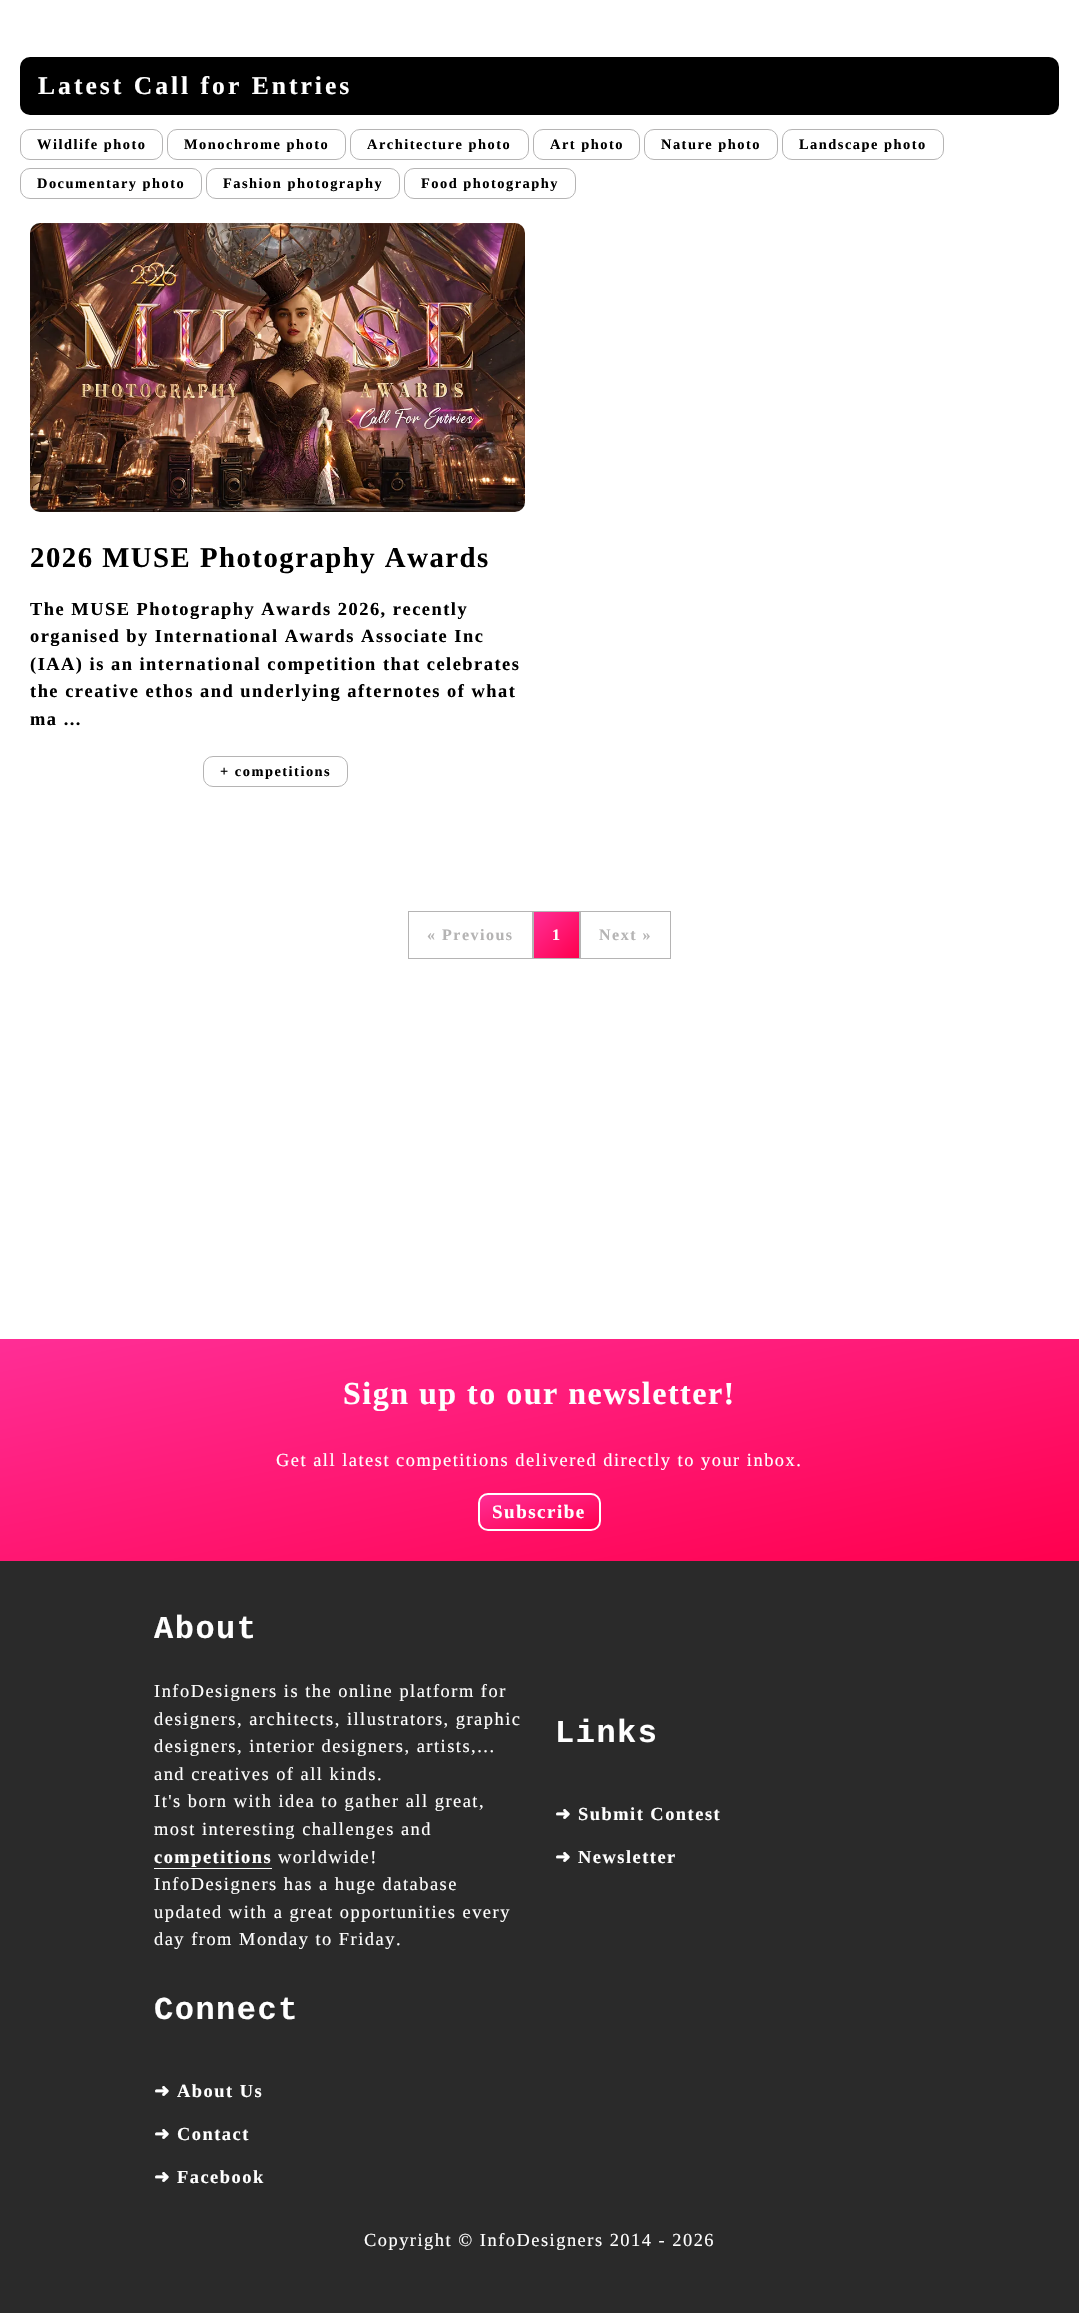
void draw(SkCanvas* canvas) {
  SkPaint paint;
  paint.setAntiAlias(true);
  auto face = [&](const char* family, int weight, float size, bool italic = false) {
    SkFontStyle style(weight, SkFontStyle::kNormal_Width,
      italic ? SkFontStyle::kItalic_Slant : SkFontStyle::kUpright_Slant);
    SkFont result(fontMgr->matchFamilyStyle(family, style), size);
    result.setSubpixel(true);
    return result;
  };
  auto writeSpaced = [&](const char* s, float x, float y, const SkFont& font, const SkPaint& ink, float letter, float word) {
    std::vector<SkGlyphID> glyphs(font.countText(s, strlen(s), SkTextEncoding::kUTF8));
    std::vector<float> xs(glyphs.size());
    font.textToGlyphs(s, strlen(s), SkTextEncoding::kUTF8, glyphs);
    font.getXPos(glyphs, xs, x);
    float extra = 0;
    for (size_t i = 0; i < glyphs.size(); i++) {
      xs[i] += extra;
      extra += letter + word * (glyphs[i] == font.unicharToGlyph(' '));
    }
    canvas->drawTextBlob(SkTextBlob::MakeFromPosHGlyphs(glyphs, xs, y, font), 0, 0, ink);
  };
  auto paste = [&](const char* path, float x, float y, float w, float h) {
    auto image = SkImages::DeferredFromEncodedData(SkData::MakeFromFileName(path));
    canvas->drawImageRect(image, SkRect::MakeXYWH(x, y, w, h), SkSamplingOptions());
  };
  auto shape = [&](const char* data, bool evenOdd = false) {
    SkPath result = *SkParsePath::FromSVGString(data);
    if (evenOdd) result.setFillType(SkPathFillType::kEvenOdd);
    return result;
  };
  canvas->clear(0xffffffff);
  paint.setColor(0xff000000);
  canvas->drawRoundRect(SkRect::MakeXYWH(20, 57, 1039, 58), 10, 10, paint);
  paint.setStroke(true);
  paint.setStrokeWidth(1);
  paint.setColor(0xffb5b4b4);
  canvas->drawRoundRect(SkRect::MakeXYWH(20.5f, 129.5f, 142, 30), 9.5f, 9.5f, paint);
  canvas->drawRoundRect(SkRect::MakeXYWH(167.5f, 129.5f, 178, 30), 9.5f, 9.5f, paint);
  canvas->drawRoundRect(SkRect::MakeXYWH(350.5f, 129.5f, 178, 30), 9.5f, 9.5f, paint);
  canvas->drawRoundRect(SkRect::MakeXYWH(533.5f, 129.5f, 106, 30), 9.5f, 9.5f, paint);
  canvas->drawRoundRect(SkRect::MakeXYWH(644.5f, 129.5f, 133, 30), 9.5f, 9.5f, paint);
  canvas->drawRoundRect(SkRect::MakeXYWH(782.5f, 129.5f, 161, 30), 9.5f, 9.5f, paint);
  canvas->drawRoundRect(SkRect::MakeXYWH(20.5f, 168.5f, 181, 30), 9.5f, 9.5f, paint);
  canvas->drawRoundRect(SkRect::MakeXYWH(206.5f, 168.5f, 193, 30), 9.5f, 9.5f, paint);
  canvas->drawRoundRect(SkRect::MakeXYWH(404.5f, 168.5f, 171, 30), 9.5f, 9.5f, paint);
  paste("img/1.png", 30, 223, 495, 289);
  canvas->drawRoundRect(SkRect::MakeXYWH(203.5f, 756.5f, 144, 30), 9.5f, 9.5f, paint);
  canvas->drawRect(SkRect::MakeXYWH(408.5f, 911.5f, 124, 47), paint);
  paint.setStroke(false);
  {
    const SkColor colors[] = {0xffff2e96, 0xffff004e};
    const float stops[] = {0, 1};
    const SkPoint ends[] = {{534, 913}, {579, 957}};
    paint.setShader(SkGradientShader::MakeLinear(ends, colors, stops, 2, SkTileMode::kClamp));
    paint.setAlpha(255);
  }
  canvas->drawRect(SkRect::MakeXYWH(534, 912, 45, 46), paint);
  paint.setStroke(true);
  paint.setShader(nullptr);
  paint.setColor(0xffb5b4b4);
  canvas->drawRect(SkRect::MakeXYWH(533.5f, 911.5f, 46, 47), paint);
  canvas->drawRect(SkRect::MakeXYWH(580.5f, 911.5f, 90, 47), paint);
  paint.setStroke(false);
  paint.setColor(0xff2a2a2a);
  canvas->drawRect(SkRect::MakeXYWH(0, 1561, 1079, 752), paint);
  {
    const SkColor colors[] = {0xffff2e96, 0xffff004e};
    const float stops[] = {0, 1};
    const SkPoint ends[] = {{496, 1237}, {583, 1663}};
    paint.setShader(SkGradientShader::MakeLinear(ends, colors, stops, 2, SkTileMode::kClamp));
    paint.setAlpha(255);
  }
  canvas->drawRect(SkRect::MakeXYWH(0, 1339, 1079, 222), paint);
  canvas->save();
  canvas->clipPath(shape("M488 1493H591C596.5 1493 601 1497.5 601 1503V1521C601 1526.5 596.5 1531 591 1531H488C482.5 1531 478 1526.5 478 1521V1503C478 1497.5 482.5 1493 488 1493Z"), true);
  {
    const SkColor colors[] = {0xffff2e96, 0xffff004e};
    const float stops[] = {0, 1};
    const SkPoint ends[] = {{531, 1481}, {548, 1543}};
    paint.setShader(SkGradientShader::MakeLinear(ends, colors, stops, 2, SkTileMode::kClamp));
    paint.setAlpha(255);
  }
  canvas->drawRect(SkRect::MakeXYWH(480, 1495, 119, 34), paint);
  canvas->restore();
  paint.setStroke(true);
  paint.setStrokeWidth(2);
  paint.setShader(nullptr);
  paint.setColor(0xffffffff);
  canvas->drawRoundRect(SkRect::MakeXYWH(479, 1494, 121, 36), 9, 9, paint);
  paint.setStroke(false);
  canvas->drawRect(SkRect::MakeXYWH(154, 1868, 118, 1), paint);
  auto f0 = face("Liberation Serif", 700, 25.6f);
  writeSpaced("Latest Call for Entries", 38, 94, f0, paint, 3, 0);
  auto f1 = face("Liberation Serif", 700, 14.4f);
  paint.setColor(0xff000000);
  {
    const struct { const char* s; float x, y; } items[] = {
      {"Wildlife photo", 37, 149},
      {"Monochrome photo", 184, 149},
      {"Architecture photo", 367, 149},
      {"Art photo", 550, 149},
      {"Nature photo", 661, 149},
      {"Landscape photo", 799, 149},
      {"Documentary photo", 37, 188},
      {"Fashion photography", 223, 188},
      {"Food photography", 421, 188},
    };
    for (auto [s, x, y] : items) {
      writeSpaced(s, x, y, f1, paint, 1.5f, 0);
    }
  }
  auto f2 = face("Liberation Serif", 700, 28.75f);
  writeSpaced("2026 MUSE Photography Awards", 30, 567, f2, paint, 1.5f, 0);
  auto f3 = face("Liberation Serif", 700, 18.4f);
  {
    const struct { const char* s; float x, y; } items[] = {
      {"The MUSE Photography Awards 2026, recently", 30, 615},
      {"organised by International Awards Associate Inc", 30, 642},
      {"(IAA) is an international competition that celebrates", 30, 670},
      {"the creative ethos and underlying afternotes of what", 30, 697},
      {"ma ...", 30, 725},
    };
    for (auto [s, x, y] : items) {
      writeSpaced(s, x, y, f3, paint, 1.5f, 0);
    }
  }
  writeSpaced("+ competitions", 220, 776, f1, paint, 1.5f, 0);
  auto f4 = face("Liberation Serif", 700, 16);
  paint.setColor(0xffb5b4b4);
  writeSpaced("« Previous", 427, 940, f4, paint, 1.5f, 0);
  paint.setColor(0xffffffff);
  writeSpaced("1", 552, 940, f4, paint, 1.5f, 0);
  paint.setColor(0xffb5b4b4);
  writeSpaced("Next »", 599, 940, f4, paint, 1.5f, 0);
  auto f5 = face("Liberation Serif", 700, 32);
  paint.setColor(0xffffffff);
  writeSpaced("Sign up to our newsletter!", 343, 1404, f5, paint, 1.5f, 0);
  auto f6 = face("Liberation Serif", 400, 18.4f);
  writeSpaced("Get all latest competitions delivered directly to your inbox.", 276, 1466, f6, paint, 1.5f, 0);
  auto f7 = face("Liberation Serif", 700, 19);
  writeSpaced("Subscribe", 492, 1518, f7, paint, 1.5f, 0);
  auto f8 = face("Liberation Mono", 700, 32);
  writeSpaced("About", 154, 1638, f8, paint, 1.5f, 0);
  {
    const struct { const char* s; float x, y; } items[] = {
      {"InfoDesigners is the online platform for", 154, 1697},
      {"designers, architects, illustrators, graphic", 154, 1725},
      {"designers, interior designers, artists,...", 154, 1752},
      {"and creatives of all kinds.", 154, 1780},
      {"It's born with idea to gather all great,", 154, 1807},
      {"most interesting challenges and", 154, 1835},
    };
    for (auto [s, x, y] : items) {
      writeSpaced(s, x, y, f6, paint, 1.5f, 0);
    }
  }
  writeSpaced("competitions", 154, 1863, f3, paint, 1.5f, 0);
  {
    const struct { const char* s; float x, y; } items[] = {
      {"worldwide!", 278, 1863},
      {"InfoDesigners has a huge database", 154, 1890},
      {"updated with a great opportunities every", 154, 1918},
      {"day from Monday to Friday.", 154, 1945},
    };
    for (auto [s, x, y] : items) {
      writeSpaced(s, x, y, f6, paint, 1.5f, 0);
    }
  }
  writeSpaced("Links", 555, 1742, f8, paint, 1.5f, 0);
  auto f9 = face("DejaVu Sans", 700, 18.4f);
  writeSpaced("➜", 555, 1820, f9, paint, 1.5f, 0);
  writeSpaced("Submit Contest", 578, 1820, f3, paint, 1.5f, 0);
  writeSpaced("➜", 555, 1863, f9, paint, 1.5f, 0);
  writeSpaced("Newsletter", 578, 1863, f3, paint, 1.5f, 0);
  writeSpaced("Connect", 154, 2019, f8, paint, 1.5f, 0);
  writeSpaced("➜", 154, 2097, f9, paint, 1.5f, 0);
  writeSpaced("About Us", 177, 2097, f3, paint, 1.5f, 0);
  writeSpaced("➜", 154, 2140, f9, paint, 1.5f, 0);
  writeSpaced("Contact", 177, 2140, f3, paint, 1.5f, 0);
  writeSpaced("➜", 154, 2183, f9, paint, 1.5f, 0);
  writeSpaced("Facebook", 177, 2183, f3, paint, 1.5f, 0);
  writeSpaced("Copyright © InfoDesigners 2014 - 2026", 364, 2246, f6, paint, 1.5f, 0);
}
